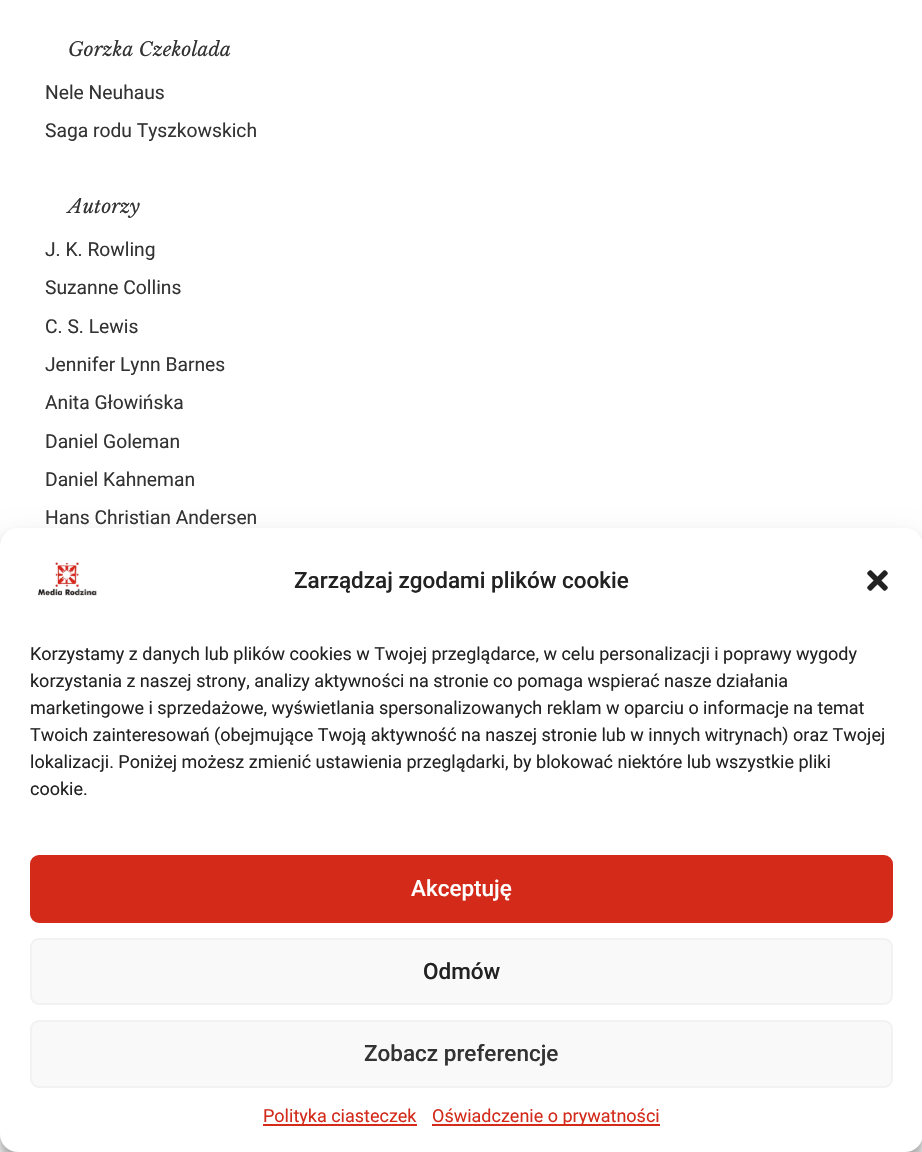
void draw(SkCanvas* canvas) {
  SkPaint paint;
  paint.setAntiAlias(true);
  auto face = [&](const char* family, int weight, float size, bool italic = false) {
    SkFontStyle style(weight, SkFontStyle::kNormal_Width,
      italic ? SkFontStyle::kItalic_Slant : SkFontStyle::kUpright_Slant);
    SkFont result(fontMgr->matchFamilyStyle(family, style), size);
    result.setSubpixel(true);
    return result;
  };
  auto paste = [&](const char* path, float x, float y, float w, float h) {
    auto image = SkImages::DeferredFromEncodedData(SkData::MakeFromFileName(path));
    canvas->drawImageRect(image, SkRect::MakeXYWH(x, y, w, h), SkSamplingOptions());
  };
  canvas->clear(0xffffffff);
  paint.setColor(0x3b000000);
  paint.setMaskFilter(SkMaskFilter::MakeBlur(kNormal_SkBlurStyle, 4.5f));
  canvas->drawRoundRect(SkRect::MakeXYWH(0, 537, 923, 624), 18, 18, paint);
  paint.setMaskFilter(nullptr);
  paint.setColor(0x30000000);
  paint.setMaskFilter(SkMaskFilter::MakeBlur(kNormal_SkBlurStyle, 15));
  canvas->drawRoundRect(SkRect::MakeXYWH(0, 543, 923, 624), 18, 18, paint);
  paint.setMaskFilter(nullptr);
  paint.setColor(0xffffffff);
  canvas->drawRoundRect(SkRect::MakeXYWH(0, 528, 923, 624), 18, 18, paint);
  paste("img/1.png", 38, 561, 59, 35);
  paste("img/2.png", 867, 570, 21, 21);
  paint.setColor(0xffd32a1a);
  canvas->drawRoundRect(SkRect::MakeXYWH(31, 856, 861, 66), 8, 8, paint);
  paint.setStroke(true);
  paint.setStrokeWidth(2);
  canvas->drawRoundRect(SkRect::MakeXYWH(31, 856, 861, 66), 8, 8, paint);
  paint.setStroke(false);
  paint.setColor(0xfff9f9f9);
  canvas->drawRoundRect(SkRect::MakeXYWH(31, 939, 861, 65), 8, 8, paint);
  paint.setStroke(true);
  paint.setColor(0xfff2f2f2);
  canvas->drawRoundRect(SkRect::MakeXYWH(31, 939, 861, 65), 8, 8, paint);
  paint.setStroke(false);
  paint.setColor(0xfff9f9f9);
  canvas->drawRoundRect(SkRect::MakeXYWH(31, 1021, 861, 66), 8, 8, paint);
  paint.setStroke(true);
  paint.setColor(0xfff2f2f2);
  canvas->drawRoundRect(SkRect::MakeXYWH(31, 1021, 861, 66), 8, 8, paint);
  paint.setStroke(false);
  paint.setColor(0xffd32a1a);
  canvas->drawRect(SkRect::MakeXYWH(263, 1124, 154, 2), paint);
  canvas->drawRect(SkRect::MakeXYWH(432, 1124, 228, 2), paint);
  auto f0 = face("Libre Baskerville", 400, 19.25f, true);
  paint.setColor(0xff333333);
  canvas->drawString("Gorzka Czekolada", 68, 56, f0, paint);
  auto f1 = face("Roboto", 400, 19.25f);
  canvas->drawString("Nele Neuhaus", 45, 99, f1, paint);
  canvas->drawString("Saga rodu Tyszkowskich", 45, 137, f1, paint);
  canvas->drawString("Autorzy", 68, 213, f0, paint);
  {
    const struct { const char* s; float x, y; } items[] = {
      {"J. K. Rowling", 45, 256},
      {"Suzanne Collins", 45, 294},
      {"C. S. Lewis", 45, 333},
      {"Jennifer Lynn Barnes", 45, 371},
      {"Anita Głowińska", 45, 409},
      {"Daniel Goleman", 45, 448},
      {"Daniel Kahneman", 45, 486},
      {"Hans Christian Andersen", 45, 524},
    };
    for (auto [s, x, y] : items) {
      canvas->drawString(s, x, y, f1, paint);
    }
  }
  auto f2 = face("Roboto", 500, 22.5f);
  paint.setColor(0xff222222);
  canvas->drawString("Zarządzaj zgodami plików cookie", 294, 588, f2, paint);
  auto f3 = face("Roboto", 400, 18);
  {
    const struct { const char* s; float x, y; } items[] = {
      {"Korzystamy z danych lub plików cookies w Twojej przeglądarce, w celu personalizacji i poprawy wygody", 30, 660},
      {"korzystania z naszej strony, analizy aktywności na stronie co pomaga wspierać nasze działania", 30, 687},
      {"marketingowe i sprzedażowe, wyświetlania spersonalizowanych reklam w oparciu o informacje na temat", 30, 714},
      {"Twoich zainteresowań (obejmujące Twoją aktywność na naszej stronie lub w innych witrynach) oraz Twojej", 30, 741},
      {"lokalizacji. Poniżej możesz zmienić ustawienia przeglądarki, by blokować niektóre lub wszystkie pliki", 30, 768},
      {"cookie.", 30, 795},
    };
    for (auto [s, x, y] : items) {
      canvas->drawString(s, x, y, f3, paint);
    }
  }
  paint.setColor(0xffffffff);
  canvas->drawString("Akceptuję", 411, 896, f2, paint);
  paint.setColor(0xff222222);
  canvas->drawString("Odmów", 423, 979, f2, paint);
  paint.setColor(0xff333333);
  canvas->drawString("Zobacz preferencje", 364, 1061, f2, paint);
  paint.setColor(0xffd32a1a);
  canvas->drawString("Polityka ciasteczek", 263, 1122, f3, paint);
  canvas->drawString("Oświadczenie o prywatności", 432, 1122, f3, paint);
}
